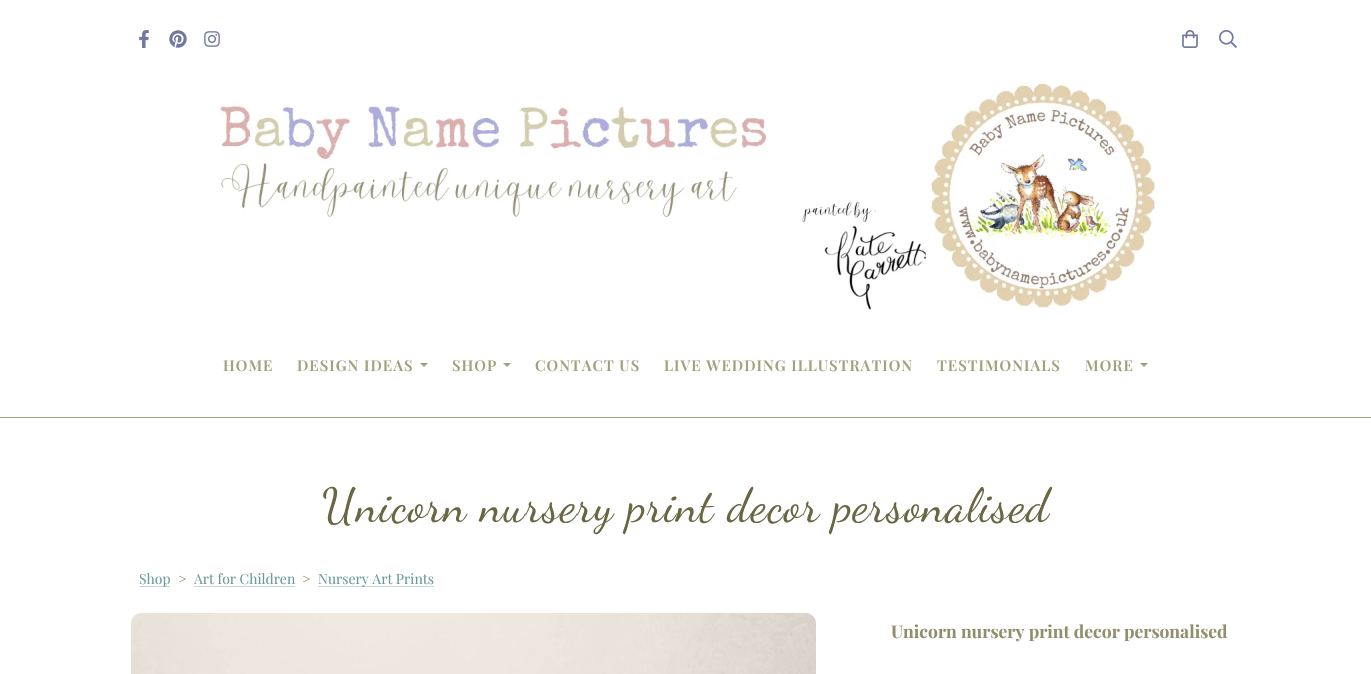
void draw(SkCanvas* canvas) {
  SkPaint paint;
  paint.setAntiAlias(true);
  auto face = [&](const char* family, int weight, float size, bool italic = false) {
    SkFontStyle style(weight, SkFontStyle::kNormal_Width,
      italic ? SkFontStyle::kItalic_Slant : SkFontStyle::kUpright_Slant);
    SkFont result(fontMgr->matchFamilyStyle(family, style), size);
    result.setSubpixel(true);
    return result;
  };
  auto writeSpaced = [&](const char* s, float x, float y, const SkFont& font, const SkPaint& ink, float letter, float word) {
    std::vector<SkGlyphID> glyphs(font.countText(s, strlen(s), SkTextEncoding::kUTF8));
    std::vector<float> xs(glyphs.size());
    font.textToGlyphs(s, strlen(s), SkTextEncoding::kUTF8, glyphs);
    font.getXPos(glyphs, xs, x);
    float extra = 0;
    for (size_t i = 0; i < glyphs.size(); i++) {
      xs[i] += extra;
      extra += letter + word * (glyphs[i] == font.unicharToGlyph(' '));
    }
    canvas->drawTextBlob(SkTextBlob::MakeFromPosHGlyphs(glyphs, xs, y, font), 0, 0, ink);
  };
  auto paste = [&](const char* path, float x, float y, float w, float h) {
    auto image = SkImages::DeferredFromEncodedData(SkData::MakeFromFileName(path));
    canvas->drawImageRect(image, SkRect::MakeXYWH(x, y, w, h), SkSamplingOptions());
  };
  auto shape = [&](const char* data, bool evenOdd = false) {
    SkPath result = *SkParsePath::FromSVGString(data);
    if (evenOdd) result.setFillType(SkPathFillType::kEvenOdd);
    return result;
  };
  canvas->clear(0xffffffff);
  paint.setColor(0xffa3a07c);
  canvas->drawRect(SkRect::MakeXYWH(0, 417, 1371, 1), paint);
  paste("img/1.png", 139, 30, 10, 18);
  paste("img/2.png", 169, 30, 18, 18);
  paste("img/3.png", 204, 31, 16, 16);
  paste("img/4.png", 1182, 30, 16, 18);
  paste("img/5.png", 1219, 30, 18, 18);
  paste("img/6.png", 218, 83, 939, 227);
  canvas->drawPath(shape("M420 363H428L424 367Z"), paint);
  canvas->drawPath(shape("M503 363H511L507 367Z"), paint);
  canvas->drawPath(shape("M1140 363H1148L1144 367Z"), paint);
  {
    const struct { float x, y, w, h; SkColor color; } items[] = {
      {139, 586, 31, 1, 0xffc3d7d6},
      {194, 586, 101, 1, 0xffc3d7d6},
      {318, 586, 116, 1, 0xffc3d7d6},
    };
    for (auto [x, y, w, h, color] : items) {
      paint.setColor(color);
      canvas->drawRect(SkRect::MakeXYWH(x, y, w, h), paint);
    }
  }
  paste("img/7.png", 131, 613, 685, 61);
  auto f0 = face("Playfair Display", 600, 15);
  paint.setColor(0xffa3a07c);
  {
    const struct { const char* s; float x, y; } items[] = {
      {"HOME", 223, 371},
      {"DESIGN IDEAS", 297, 371},
      {"SHOP", 452, 371},
      {"CONTACT US", 535, 371},
      {"LIVE WEDDING ILLUSTRATION", 664, 371},
      {"TESTIMONIALS", 937, 371},
      {"MORE", 1085, 371},
    };
    for (auto [s, x, y] : items) {
      writeSpaced(s, x, y, f0, paint, 1, 0);
    }
  }
  auto f1 = face("Dancing Script", 400, 47.4f);
  paint.setColor(0xff696642);
  writeSpaced("Unicorn nursery print decor personalised", 322, 521, f1, paint, 1, 0);
  auto f2 = face("Playfair Display", 400, 14);
  paint.setColor(0xff699b99);
  canvas->drawString("Shop", 139, 584, f2, paint);
  paint.setColor(0xff918e6b);
  canvas->drawString(">", 178, 584, f2, paint);
  paint.setColor(0xff699b99);
  canvas->drawString("Art for Children", 194, 584, f2, paint);
  paint.setColor(0xff918e6b);
  canvas->drawString(">", 302, 584, f2, paint);
  paint.setColor(0xff699b99);
  canvas->drawString("Nursery Art Prints", 318, 584, f2, paint);
  auto f3 = face("Playfair Display", 700, 17.5f);
  paint.setColor(0xff918e6b);
  canvas->drawString("Unicorn nursery print decor personalised", 891, 638, f3, paint);
}
